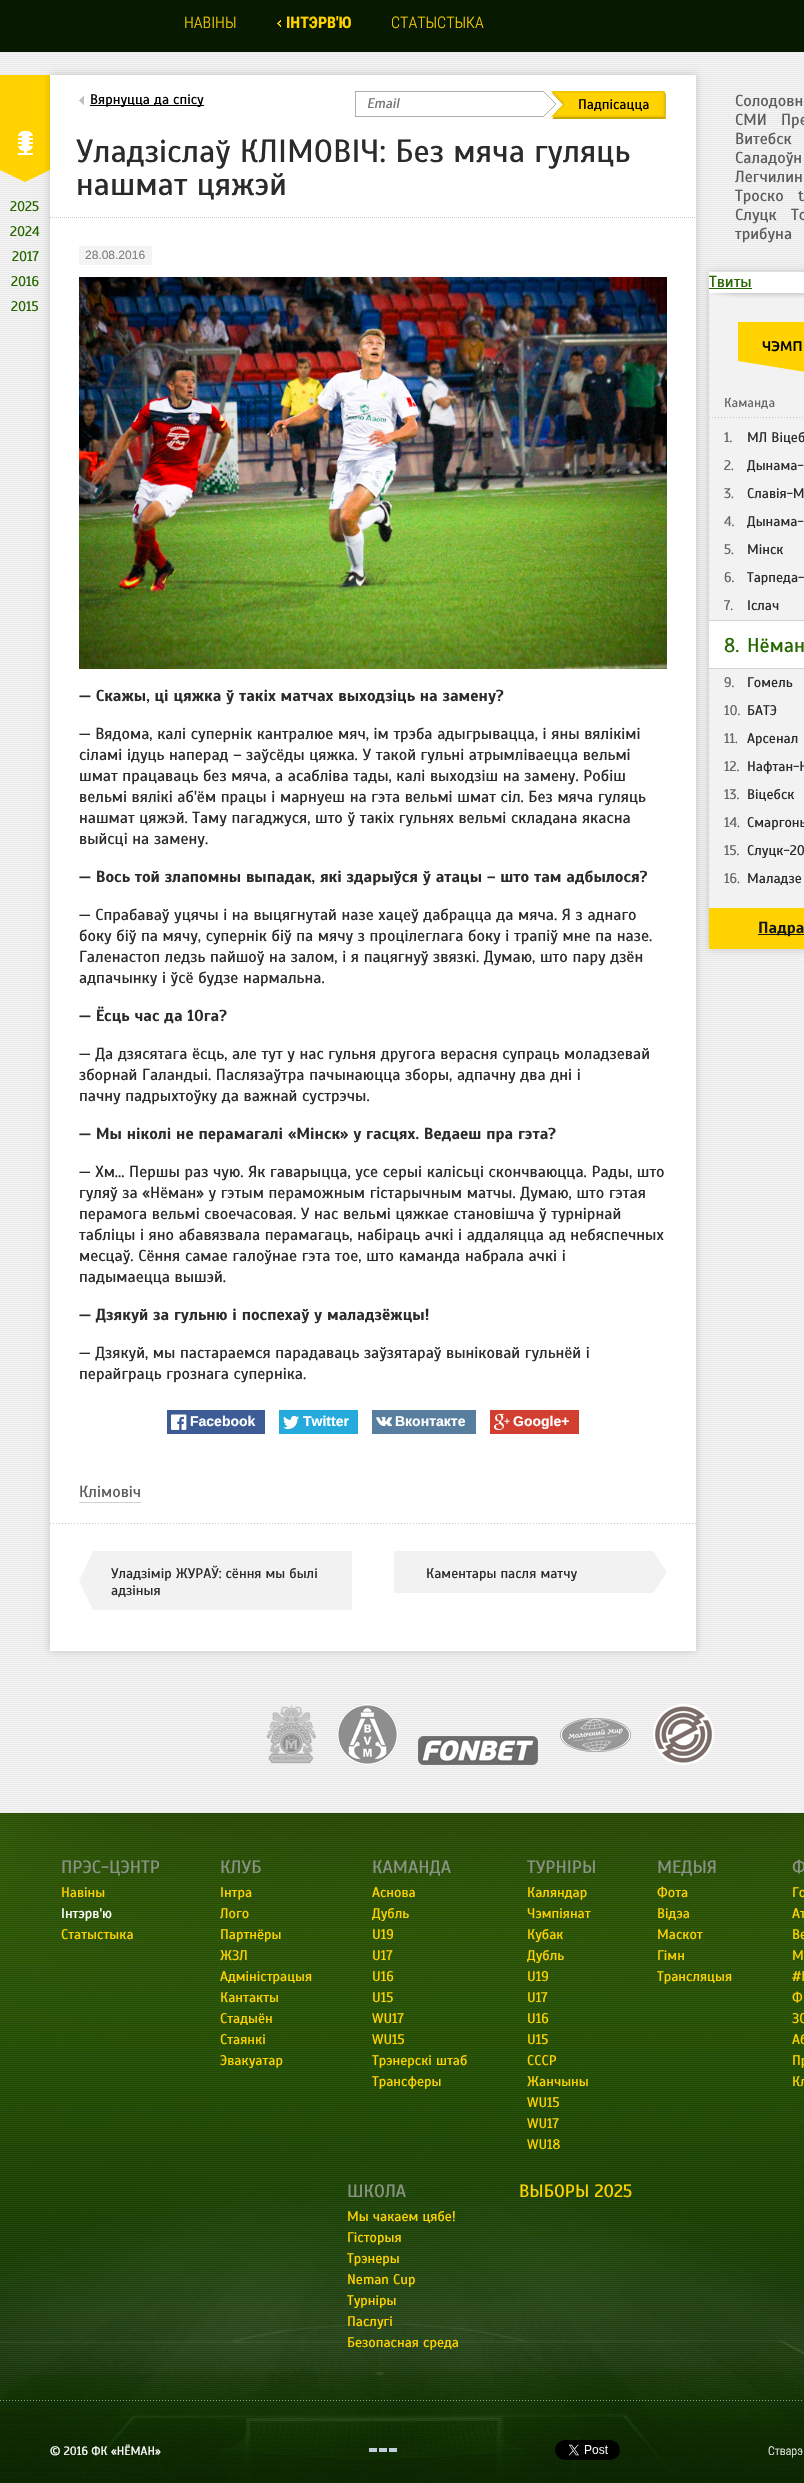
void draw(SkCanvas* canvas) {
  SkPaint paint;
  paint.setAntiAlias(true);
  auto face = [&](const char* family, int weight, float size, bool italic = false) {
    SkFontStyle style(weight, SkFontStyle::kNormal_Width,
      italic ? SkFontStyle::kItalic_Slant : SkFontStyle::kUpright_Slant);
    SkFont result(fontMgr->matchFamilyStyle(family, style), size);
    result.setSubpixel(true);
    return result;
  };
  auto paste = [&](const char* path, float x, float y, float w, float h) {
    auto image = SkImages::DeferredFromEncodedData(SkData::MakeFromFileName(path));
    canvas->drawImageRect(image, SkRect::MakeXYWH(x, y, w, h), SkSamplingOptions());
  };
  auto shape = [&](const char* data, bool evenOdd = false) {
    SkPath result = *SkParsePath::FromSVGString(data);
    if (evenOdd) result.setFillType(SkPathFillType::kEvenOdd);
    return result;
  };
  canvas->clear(0xffffffff);
  paste("img/1.png", 0, 1813, 804, 670);
  paste("img/2.png", 0, 1813, 804, 669);
  paint.setColor(0x80000000);
  paint.setMaskFilter(SkMaskFilter::MakeBlur(kNormal_SkBlurStyle, 102));
  canvas->drawRect(SkRect::MakeXYWH(0, -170, 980, 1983), paint);
  paint.setMaskFilter(nullptr);
  paint.setColor(0xff071900);
  canvas->drawRect(SkRect::MakeXYWH(0, 0, 804, 52), paint);
  paste("img/3.png", 277, 20, 4, 7);
  paste("img/4.png", 0, 52, 804, 1761);
  paint.setColor(0x30000000);
  paint.setMaskFilter(SkMaskFilter::MakeBlur(kNormal_SkBlurStyle, 4));
  canvas->drawRect(SkRect::MakeXYWH(50, 75, 646, 1576), paint);
  paint.setMaskFilter(nullptr);
  paint.setColor(0xffffffff);
  canvas->drawRect(SkRect::MakeXYWH(50, 75, 646, 1576), paint);
  paste("img/5.png", 0, 75, 50, 107);
  paint.setStroke(true);
  paint.setStrokeWidth(1);
  paint.setColor(0xffcacaca);
  paint.setPathEffect(SkDashPathEffect::Make({{1, 1}}, 0));
  canvas->drawPath(shape("M50 217.5H696"), paint);
  paint.setPathEffect(nullptr);
  paste("img/6.png", 79, 96, 5, 9);
  paint.setStroke(false);
  paint.setColor(0xff000000);
  canvas->drawRect(SkRect::MakeXYWH(90, 105, 114, 1), paint);
  paste("img/7.png", 355, 91, 201, 26);
  paste("img/8.png", 551, 91, 115, 28);
  paint.setColor(0xfff4f4f4);
  canvas->drawRect(SkRect::MakeXYWH(79, 246, 73, 19), paint);
  paste("img/9.png", 79, 277, 588, 392);
  paint.setColor(0xff3d5b95);
  canvas->drawRect(SkRect::MakeXYWH(167, 1410, 98, 24), paint);
  paste("img/10.png", 171, 1414, 16, 16);
  paint.setColor(0xff24aadd);
  canvas->drawRect(SkRect::MakeXYWH(279, 1410, 79, 24), paint);
  paste("img/11.png", 283, 1415, 16, 14);
  paint.setColor(0xff587e9f);
  canvas->drawRect(SkRect::MakeXYWH(372, 1410, 104, 24), paint);
  paste("img/12.png", 376, 1416, 16, 11);
  paint.setColor(0xffd23e30);
  canvas->drawRect(SkRect::MakeXYWH(490, 1410, 89, 24), paint);
  paste("img/13.png", 494, 1413, 16, 17);
  paint.setColor(0xffd1d1d1);
  canvas->drawRect(SkRect::MakeXYWH(79, 1502, 62, 1), paint);
  paste("img/14.png", 50, 1523, 646, 1);
  paste("img/15.png", 79, 1551, 273, 59);
  paste("img/16.png", 394, 1551, 273, 42);
  paint.setColor(0x30000000);
  paint.setMaskFilter(SkMaskFilter::MakeBlur(kNormal_SkBlurStyle, 4));
  canvas->drawRect(SkRect::MakeXYWH(709, 272, 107, 677), paint);
  paint.setMaskFilter(nullptr);
  {
    const struct { float x, y, w, h; SkColor color; } items[] = {
      {709, 272, 95, 21, 0xffffffff},
      {709, 288, 43, 1, 0xff276700},
      {709, 293, 95, 615, 0xfff2f2f2},
    };
    for (auto [x, y, w, h, color] : items) {
      paint.setColor(color);
      canvas->drawRect(SkRect::MakeXYWH(x, y, w, h), paint);
    }
  }
  paste("img/17.png", 711, 293, 93, 5);
  paste("img/18.png", 738, 322, 66, 50);
  paste("img/19.png", 709, 417, 94, 1);
  {
    const struct { float x, y, w, h; SkColor color; } items[] = {
      {709, 621, 95, 47, 0xffffffff},
      {709, 620, 95, 1, 0xffd2d2d2},
      {709, 668, 95, 1, 0xffd2d2d2},
      {709, 908, 95, 41, 0xffffd200},
      {758, 934, 46, 1, 0xff161716},
    };
    for (auto [x, y, w, h, color] : items) {
      paint.setColor(color);
      canvas->drawRect(SkRect::MakeXYWH(x, y, w, h), paint);
    }
  }
  paste("img/20.png", 266, 1705, 50, 59);
  paste("img/21.png", 337, 1704, 61, 61);
  paste("img/22.png", 418, 1736, 120, 29);
  paste("img/23.png", 560, 1718, 71, 34);
  paste("img/24.png", 653, 1704, 61, 61);
  paste("img/25.png", 0, 2400, 802, 1);
  paste("img/26.png", 369, 2448, 28, 4);
  paste("img/27.png", 555, 2440, 65, 20);
  auto f0 = face("Roboto Condensed", 300, 16);
  paint.setColor(0xffffd200);
  canvas->drawString("НАВІНЫ", 184, 28, f0, paint);
  auto f1 = face("Roboto Condensed", 700, 16);
  canvas->drawString("ІНТЭРВ'Ю", 286, 28, f1, paint);
  canvas->drawString("СТАТЫСТЫКА", 391, 28, f0, paint);
  auto f2 = face("Scada", 400, 14);
  paint.setColor(0xff000000);
  canvas->drawString("Вярнуцца да спісу", 90, 104, f2, paint);
  auto f3 = face("Scada", 400, 32);
  paint.setColor(0xff2b2b2b);
  canvas->drawString("Уладзіслаў КЛІМОВІЧ: Без мяча гуляць", 76, 162, f3, paint);
  canvas->drawString("нашмат цяжэй", 76, 195, f3, paint);
  auto f4 = face("Scada", 400, 14, true);
  paint.setColor(0xff757575);
  canvas->drawString("Email", 367, 108, f4, paint);
  paint.setColor(0xff000000);
  canvas->drawString("Падпісацца", 578, 109, f2, paint);
  paint.setColor(0xff276700);
  {
    const struct { const char* s; float x, y; } items[] = {
      {"2025", 10, 211},
      {"2024", 10, 236},
      {"2017", 12, 261},
      {"2016", 11, 286},
      {"2015", 11, 311},
    };
    for (auto [s, x, y] : items) {
      canvas->drawString(s, x, y, f2, paint);
    }
  }
  auto f5 = face("Liberation Sans", 400, 12);
  paint.setColor(0xff7f7f7f);
  canvas->drawString("28.08.2016", 85, 259, f5, paint);
  auto f6 = face("Scada", 700, 16);
  paint.setColor(0xff2b2b2b);
  canvas->drawString("— Скажы, ці цяжка ў такіх матчах выходзіць на замену?", 79, 701, f6, paint);
  auto f7 = face("Scada", 400, 16);
  {
    const struct { const char* s; float x, y; } items[] = {
      {"— Вядома, калі супернік кантралюе мяч, ім трэба адыгрывацца, і яны вялікімі", 79, 739},
      {"сіламі ідуць наперад – заўсёды цяжка. У такой гульні атрымліваецца вельмі", 79, 760},
      {"шмат працаваць без мяча, а асабліва тады, калі выходзіш на замену. Робіш", 79, 781},
      {"вельмі вялікі аб'ём працы і марнуеш на гэта вельмі шмат сіл. Без мяча гуляць", 79, 802},
      {"нашмат цяжэй. Таму пагаджуся, што ў такіх гульнях вельмі складана якасна", 79, 823},
      {"выйсці на замену.", 79, 844},
    };
    for (auto [s, x, y] : items) {
      canvas->drawString(s, x, y, f7, paint);
    }
  }
  canvas->drawString("— Вось той злапомны выпадак, які здарыўся ў атацы – што там адбылося?", 79, 882, f6, paint);
  {
    const struct { const char* s; float x, y; } items[] = {
      {"— Спрабаваў уцячы і на выцягнутай назе хацеў дабрацца да мяча. Я з аднаго", 79, 920},
      {"боку біў па мячу, супернік біў па мячу з процілеглага боку і трапіў мне па назе.", 79, 941},
      {"Галенастоп ледзь пайшоў на залом, і я пацягнуў звязкі. Думаю, што пару дзён", 79, 962},
      {"адпачынку і ўсё будзе нармальна.", 79, 983},
    };
    for (auto [s, x, y] : items) {
      canvas->drawString(s, x, y, f7, paint);
    }
  }
  canvas->drawString("— Ёсць час да 10га?", 79, 1021, f6, paint);
  {
    const struct { const char* s; float x, y; } items[] = {
      {"— Да дзясятага ёсць, але тут у нас гульня другога верасня супраць моладзевай", 79, 1059},
      {"зборнай Галандыі. Паслязаўтра пачынаюцца зборы, адпачну два дні і", 79, 1080},
      {"пачну падрыхтоўку да важнай сустрэчы.", 79, 1101},
    };
    for (auto [s, x, y] : items) {
      canvas->drawString(s, x, y, f7, paint);
    }
  }
  canvas->drawString("— Мы ніколі не перамагалі «Мінск» у гасцях. Ведаеш пра гэта?", 79, 1139, f6, paint);
  {
    const struct { const char* s; float x, y; } items[] = {
      {"— Хм... Першы раз чую. Як гаварыцца, усе серыі калісьці скончваюцца. Рады, што", 79, 1177},
      {"гуляў за «Нёман» у гэтым пераможным гістарычным матчы. Думаю, што гэтая", 79, 1198},
      {"перамога вельмі своечасовая. У нас вельмі цяжкае становішча ў турнірнай", 79, 1219},
      {"табліцы і яно абавязвала перамагаць, набіраць ачкі і аддаляцца ад небяспечных", 79, 1240},
      {"месцаў. Сёння самае галоўнае гэта тое, што каманда набрала ачкі і", 79, 1261},
      {"падымаецца вышэй.", 79, 1282},
    };
    for (auto [s, x, y] : items) {
      canvas->drawString(s, x, y, f7, paint);
    }
  }
  canvas->drawString("— Дзякуй за гульню і поспехаў у маладзёжцы!", 79, 1320, f6, paint);
  canvas->drawString("— Дзякуй, мы пастараемся парадаваць заўзятараў выніковай гульнёй і", 79, 1358, f7, paint);
  canvas->drawString("перайграць грознага суперніка.", 79, 1379, f7, paint);
  auto f8 = face("Liberation Sans", 700, 14);
  paint.setColor(0xffffffff);
  {
    const struct { const char* s; float x, y; } items[] = {
      {"Facebook", 190, 1426},
      {"Twitter", 303, 1426},
      {"Вконтакте", 395, 1426},
      {"Google+", 513, 1426},
    };
    for (auto [s, x, y] : items) {
      canvas->drawString(s, x, y, f8, paint);
    }
  }
  paint.setColor(0xff5c5c5c);
  canvas->drawString("Клімовіч", 79, 1497, f7, paint);
  paint.setColor(0xff2b2b2b);
  {
    const struct { const char* s; float x, y; } items[] = {
      {"Уладзімір ЖУРАЎ: сёння мы былі", 111, 1578},
      {"адзіныя", 111, 1595},
      {"Каментары пасля матчу", 426, 1578},
    };
    for (auto [s, x, y] : items) {
      canvas->drawString(s, x, y, f2, paint);
    }
  }
  paint.setColor(0xff5c5c5c);
  {
    const struct { const char* s; float x, y; } items[] = {
      {"Солодовн", 735, 106},
      {"СМИ", 735, 125},
      {"Пре", 781, 125},
      {"Витебск", 735, 144},
      {"Саладоўн", 735, 163},
      {"Легчилин", 735, 182},
      {"Троско", 735, 201},
      {"t", 798, 201},
      {"Слуцк", 735, 220},
      {"То", 791, 220},
      {"трибуна", 735, 239},
    };
    for (auto [s, x, y] : items) {
      canvas->drawString(s, x, y, f7, paint);
    }
  }
  paint.setColor(0xff276700);
  canvas->drawString("Твиты", 709, 287, f7, paint);
  auto f9 = face("Ubuntu", 500, 14);
  paint.setColor(0xff000000);
  canvas->drawString("ЧЭМП", 762, 351, f9, paint);
  auto f10 = face("Scada", 400, 13);
  paint.setColor(0xff676767);
  canvas->drawString("Каманда", 724, 407, f10, paint);
  canvas->drawString("1.", 724, 442, f2, paint);
  paint.setColor(0xff2b2b2b);
  canvas->drawString("МЛ Віцеб", 747, 442, f2, paint);
  paint.setColor(0xff676767);
  canvas->drawString("2.", 724, 470, f2, paint);
  paint.setColor(0xff2b2b2b);
  canvas->drawString("Дынама-", 747, 470, f2, paint);
  paint.setColor(0xff676767);
  canvas->drawString("3.", 724, 498, f2, paint);
  paint.setColor(0xff2b2b2b);
  canvas->drawString("Славія-М", 747, 498, f2, paint);
  paint.setColor(0xff676767);
  canvas->drawString("4.", 724, 526, f2, paint);
  paint.setColor(0xff2b2b2b);
  canvas->drawString("Дынама-", 747, 526, f2, paint);
  paint.setColor(0xff676767);
  canvas->drawString("5.", 724, 554, f2, paint);
  paint.setColor(0xff2b2b2b);
  canvas->drawString("Мінск", 747, 554, f2, paint);
  paint.setColor(0xff676767);
  canvas->drawString("6.", 724, 582, f2, paint);
  paint.setColor(0xff2b2b2b);
  canvas->drawString("Тарпеда-", 747, 582, f2, paint);
  paint.setColor(0xff676767);
  canvas->drawString("7.", 724, 610, f2, paint);
  paint.setColor(0xff2b2b2b);
  canvas->drawString("Іслач", 747, 610, f2, paint);
  auto f11 = face("Scada", 400, 20);
  paint.setColor(0xff276700);
  canvas->drawString("8.", 724, 652, f11, paint);
  canvas->drawString("Нёман", 747, 652, f11, paint);
  paint.setColor(0xff676767);
  canvas->drawString("9.", 724, 687, f2, paint);
  paint.setColor(0xff2b2b2b);
  canvas->drawString("Гомель", 747, 687, f2, paint);
  paint.setColor(0xff676767);
  canvas->drawString("10.", 724, 715, f2, paint);
  paint.setColor(0xff2b2b2b);
  canvas->drawString("БАТЭ", 747, 715, f2, paint);
  paint.setColor(0xff676767);
  canvas->drawString("11.", 724, 743, f2, paint);
  paint.setColor(0xff2b2b2b);
  canvas->drawString("Арсенал", 747, 743, f2, paint);
  paint.setColor(0xff676767);
  canvas->drawString("12.", 724, 771, f2, paint);
  paint.setColor(0xff2b2b2b);
  canvas->drawString("Нафтан-Н", 747, 771, f2, paint);
  paint.setColor(0xff676767);
  canvas->drawString("13.", 724, 799, f2, paint);
  paint.setColor(0xff2b2b2b);
  canvas->drawString("Віцебск", 747, 799, f2, paint);
  paint.setColor(0xff676767);
  canvas->drawString("14.", 724, 827, f2, paint);
  paint.setColor(0xff2b2b2b);
  canvas->drawString("Смаргонь", 747, 827, f2, paint);
  paint.setColor(0xff676767);
  canvas->drawString("15.", 724, 855, f2, paint);
  paint.setColor(0xff2b2b2b);
  canvas->drawString("Слуцк-20", 747, 855, f2, paint);
  paint.setColor(0xff676767);
  canvas->drawString("16.", 724, 883, f2, paint);
  paint.setColor(0xff2b2b2b);
  canvas->drawString("Маладзе", 747, 883, f2, paint);
  paint.setColor(0xff161716);
  canvas->drawString("Падра", 758, 933, f6, paint);
  auto f12 = face("Scada", 400, 18);
  paint.setColor(0xff8a9383);
  canvas->drawString("ПРЭС-ЦЭНТР", 61, 1873, f12, paint);
  paint.setColor(0xffffd200);
  canvas->drawString("Навіны", 61, 1897, f2, paint);
  paint.setColor(0xffffffff);
  canvas->drawString("Інтэрв'ю", 61, 1918, f2, paint);
  paint.setColor(0xffffd200);
  canvas->drawString("Статыстыка", 61, 1939, f2, paint);
  paint.setColor(0xff8a9383);
  canvas->drawString("КЛУБ", 220, 1873, f12, paint);
  paint.setColor(0xffffd200);
  {
    const struct { const char* s; float x, y; } items[] = {
      {"Інтра", 220, 1897},
      {"Лого", 220, 1918},
      {"Партнёры", 220, 1939},
      {"ЖЗЛ", 220, 1960},
      {"Адміністрацыя", 220, 1981},
      {"Кантакты", 220, 2002},
      {"Стадыён", 220, 2023},
      {"Стаянкі", 220, 2044},
      {"Эвакуатар", 220, 2065},
    };
    for (auto [s, x, y] : items) {
      canvas->drawString(s, x, y, f2, paint);
    }
  }
  paint.setColor(0xff8a9383);
  canvas->drawString("КАМАНДА", 372, 1873, f12, paint);
  paint.setColor(0xffffd200);
  {
    const struct { const char* s; float x, y; } items[] = {
      {"Аснова", 372, 1897},
      {"Дубль", 372, 1918},
      {"U19", 372, 1939},
      {"U17", 372, 1960},
      {"U16", 372, 1981},
      {"U15", 372, 2002},
      {"WU17", 372, 2023},
      {"WU15", 372, 2044},
      {"Трэнерскі штаб", 372, 2065},
      {"Трансферы", 372, 2086},
    };
    for (auto [s, x, y] : items) {
      canvas->drawString(s, x, y, f2, paint);
    }
  }
  paint.setColor(0xff8a9383);
  canvas->drawString("ТУРНІРЫ", 527, 1873, f12, paint);
  paint.setColor(0xffffd200);
  {
    const struct { const char* s; float x, y; } items[] = {
      {"Каляндар", 527, 1897},
      {"Чэмпіянат", 527, 1918},
      {"Кубак", 527, 1939},
      {"Дубль", 527, 1960},
      {"U19", 527, 1981},
      {"U17", 527, 2002},
      {"U16", 527, 2023},
      {"U15", 527, 2044},
      {"СССР", 527, 2065},
      {"Жанчыны", 527, 2086},
      {"WU15", 527, 2107},
      {"WU17", 527, 2128},
      {"WU18", 527, 2149},
    };
    for (auto [s, x, y] : items) {
      canvas->drawString(s, x, y, f2, paint);
    }
  }
  paint.setColor(0xff8a9383);
  canvas->drawString("МЕДЫЯ", 657, 1873, f12, paint);
  paint.setColor(0xffffd200);
  {
    const struct { const char* s; float x, y; } items[] = {
      {"Фота", 657, 1897},
      {"Відэа", 657, 1918},
      {"Маскот", 657, 1939},
      {"Гімн", 657, 1960},
      {"Трансляцыя", 657, 1981},
    };
    for (auto [s, x, y] : items) {
      canvas->drawString(s, x, y, f2, paint);
    }
  }
  paint.setColor(0xff8a9383);
  canvas->drawString("Ф", 792, 1873, f12, paint);
  paint.setColor(0xffffd200);
  {
    const struct { const char* s; float x, y; } items[] = {
      {"Го", 792, 1897},
      {"Ат", 792, 1918},
      {"Ве", 792, 1939},
      {"М", 792, 1960},
      {"#E", 792, 1981},
      {"Ф", 792, 2002},
      {"ЗО", 792, 2023},
      {"Аб", 792, 2044},
      {"Пр", 792, 2065},
      {"Кл", 792, 2086},
    };
    for (auto [s, x, y] : items) {
      canvas->drawString(s, x, y, f2, paint);
    }
  }
  paint.setColor(0xff8a9383);
  canvas->drawString("ШКОЛА", 347, 2197, f12, paint);
  paint.setColor(0xffffd200);
  {
    const struct { const char* s; float x, y; } items[] = {
      {"Мы чакаем цябе!", 347, 2221},
      {"Гісторыя", 347, 2242},
      {"Трэнеры", 347, 2263},
      {"Neman Cup", 347, 2284},
      {"Турніры", 347, 2305},
      {"Паслугі", 347, 2326},
      {"Безопасная среда", 347, 2347},
    };
    for (auto [s, x, y] : items) {
      canvas->drawString(s, x, y, f2, paint);
    }
  }
  canvas->drawString("ВЫБОРЫ 2025", 519, 2197, f12, paint);
  auto f13 = face("Scada", 400, 12);
  paint.setColor(0xffffffff);
  canvas->drawString("© 2016 ФК «НЁМАН»", 50, 2455, f13, paint);
  auto f14 = face("Roboto Condensed", 300, 12);
  canvas->drawString("Стварэ", 768, 2455, f14, paint);
}
